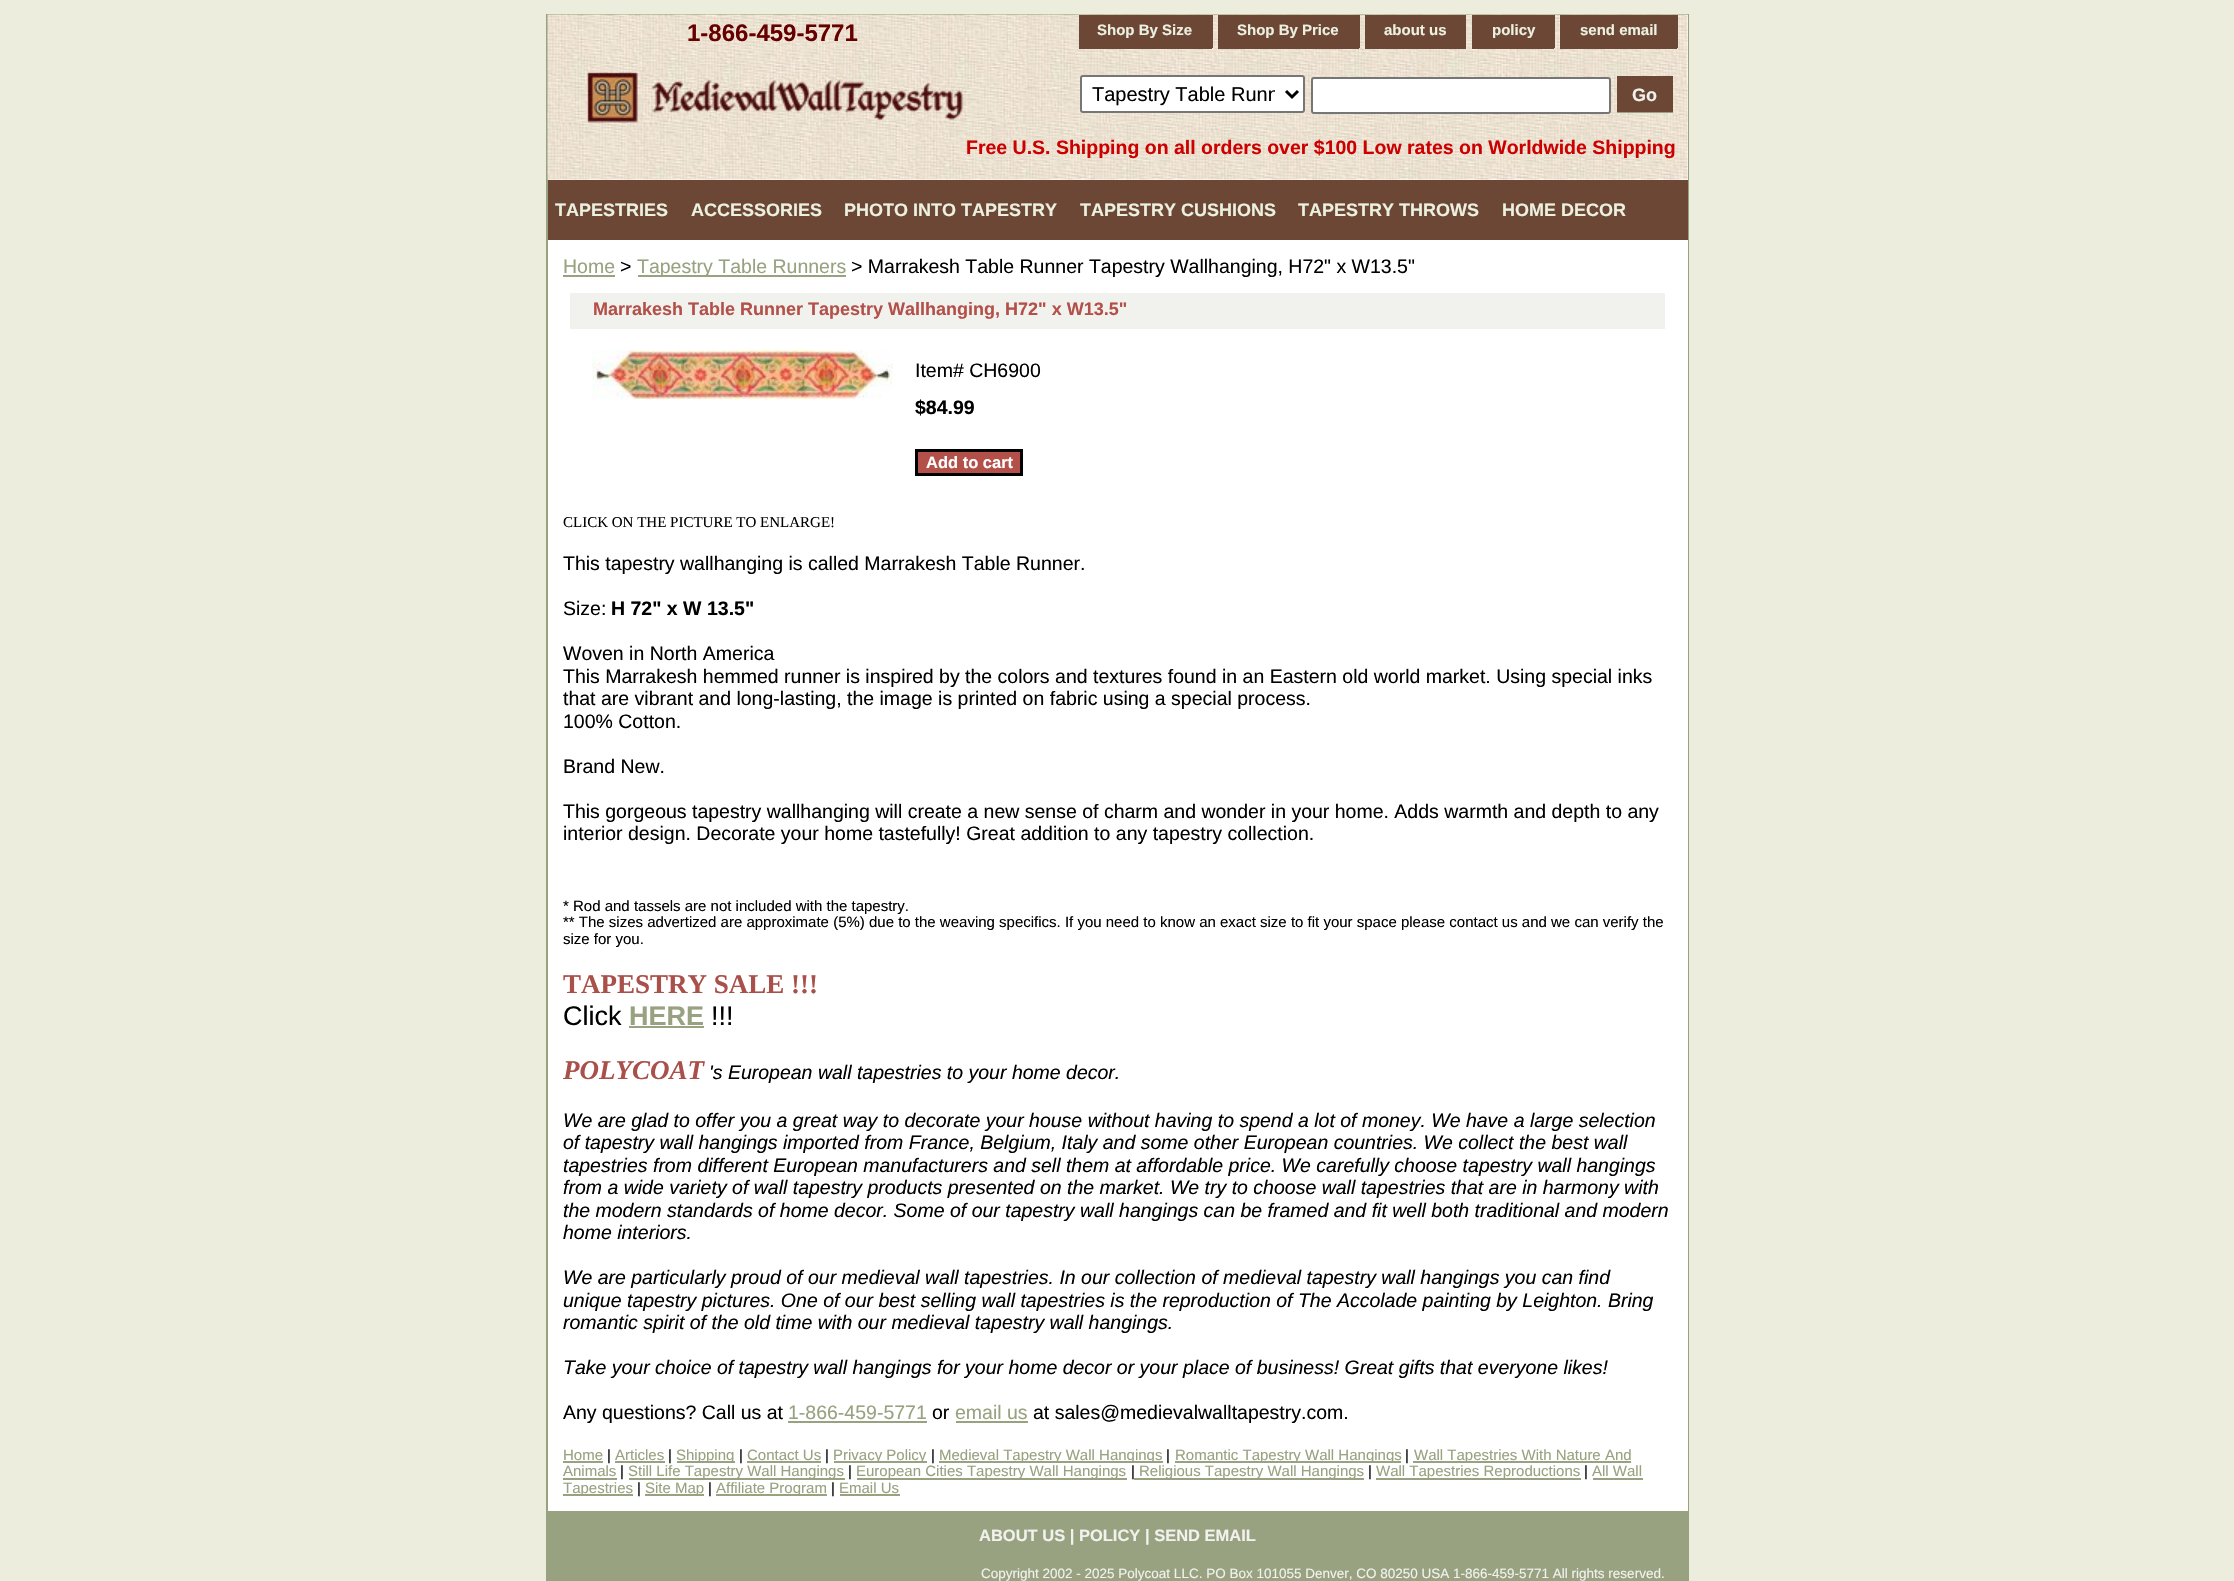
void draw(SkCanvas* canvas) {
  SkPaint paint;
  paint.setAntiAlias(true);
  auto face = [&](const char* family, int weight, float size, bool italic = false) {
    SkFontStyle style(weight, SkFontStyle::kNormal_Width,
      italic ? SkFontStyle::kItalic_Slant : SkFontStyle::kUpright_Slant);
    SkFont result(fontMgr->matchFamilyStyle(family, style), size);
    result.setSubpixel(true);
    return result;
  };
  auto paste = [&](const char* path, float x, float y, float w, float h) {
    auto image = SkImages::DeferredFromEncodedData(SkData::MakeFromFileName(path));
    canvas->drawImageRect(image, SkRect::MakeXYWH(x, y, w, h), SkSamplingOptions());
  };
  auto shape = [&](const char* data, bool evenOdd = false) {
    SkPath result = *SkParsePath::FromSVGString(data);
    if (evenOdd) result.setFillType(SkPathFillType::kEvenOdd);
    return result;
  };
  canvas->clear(0xffeceddc);
  paint.setStroke(true);
  paint.setStrokeWidth(2);
  paint.setColor(0xff98a280);
  canvas->drawRect(SkRect::MakeXYWH(547, 15, 1141, 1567), paint);
  paint.setStroke(false);
  paint.setColor(0xffffffff);
  canvas->drawRect(SkRect::MakeXYWH(548, 15, 1140, 165), paint);
  paste("img/1.png", 547, 14, 1141, 166);
  {
    const struct { float x, y, w, h; SkColor color; } items[] = {
      {1079, 15, 132, 32, 0xff6d4736},
      {1211, 15, 2, 33, 0xff6d4736},
      {1079, 47, 133, 2, 0xff6d4736},
      {1218, 15, 140, 32, 0xff6d4736},
      {1358, 15, 2, 33, 0xff6d4736},
      {1218, 47, 141, 2, 0xff6d4736},
      {1365, 15, 101, 34, 0xff6d4736},
      {1472, 15, 81, 32, 0xff6d4736},
      {1553, 15, 2, 33, 0xff6d4736},
      {1472, 47, 82, 2, 0xff6d4736},
      {1560, 15, 116, 32, 0xff6d4736},
      {1676, 15, 2, 33, 0xff6d4736},
      {1560, 47, 117, 2, 0xff6d4736},
    };
    for (auto [x, y, w, h, color] : items) {
      paint.setColor(color);
      canvas->drawRect(SkRect::MakeXYWH(x, y, w, h), paint);
    }
  }
  paint.setColor(0xffffffff);
  canvas->drawRoundRect(SkRect::MakeXYWH(1081, 76, 223, 36), 2, 2, paint);
  paint.setStroke(true);
  paint.setColor(0xff767676);
  canvas->drawRoundRect(SkRect::MakeXYWH(1081, 76, 223, 36), 2, 2, paint);
  paint.setStrokeWidth(3);
  paint.setColor(0xff000000);
  canvas->drawPath(shape("M1286 91L1292 97L1298 91"), paint);
  paint.setStroke(false);
  paint.setColor(0xffffffff);
  canvas->drawRoundRect(SkRect::MakeXYWH(1312, 78, 298, 35), 2, 2, paint);
  paint.setStroke(true);
  paint.setStrokeWidth(2);
  paint.setColor(0xff767676);
  canvas->drawRoundRect(SkRect::MakeXYWH(1312, 78, 298, 35), 2, 2, paint);
  paint.setStroke(false);
  {
    const struct { float x, y, w, h; SkColor color; } items[] = {
      {1617, 112, 56, 1, 0xff98a280},
      {1617, 76, 56, 36, 0xff6d4736},
      {548, 180, 1140, 60, 0xff6d4736},
      {548, 240, 1140, 1271, 0xffffffff},
      {563, 275, 52, 2, 0xff98a280},
      {638, 275, 208, 2, 0xff98a280},
      {570, 293, 1095, 36, 0xfff1f2ed},
    };
    for (auto [x, y, w, h, color] : items) {
      paint.setColor(color);
      canvas->drawRect(SkRect::MakeXYWH(x, y, w, h), paint);
    }
  }
  paste("img/2.png", 592, 350, 301, 50);
  paint.setColor(0xffb3504a);
  canvas->drawRect(SkRect::MakeXYWH(916.5f, 450.5f, 105, 24), paint);
  paint.setStroke(true);
  paint.setStrokeWidth(3);
  paint.setColor(0xff000000);
  canvas->drawRect(SkRect::MakeXYWH(916.5f, 450.5f, 105, 24), paint);
  paint.setStroke(false);
  {
    const struct { float x, y, w, h; SkColor color; } items[] = {
      {629, 1026, 75, 2, 0xff98a280},
      {788, 1421, 139, 2, 0xff98a280},
      {956, 1421, 72, 2, 0xff98a280},
      {563, 1461, 40, 2, 0xff98a280},
      {615, 1461, 50, 2, 0xff98a280},
      {677, 1461, 58, 2, 0xff98a280},
      {747, 1461, 74, 2, 0xff98a280},
      {834, 1461, 93, 2, 0xff98a280},
      {939, 1461, 224, 2, 0xff98a280},
      {1175, 1461, 226, 2, 0xff98a280},
      {1413, 1461, 218, 2, 0xff98a280},
      {563, 1478, 54, 2, 0xff98a280},
      {629, 1478, 216, 2, 0xff98a280},
      {857, 1478, 270, 2, 0xff98a280},
      {1134, 1478, 230, 2, 0xff98a280},
      {1376, 1478, 205, 2, 0xff98a280},
      {1593, 1478, 50, 2, 0xff98a280},
      {563, 1494, 70, 2, 0xff98a280},
      {645, 1494, 59, 2, 0xff98a280},
      {716, 1494, 111, 2, 0xff98a280},
      {840, 1494, 60, 2, 0xff98a280},
      {548, 1511, 1139, 70, 0xff98a280},
    };
    for (auto [x, y, w, h, color] : items) {
      paint.setColor(color);
      canvas->drawRect(SkRect::MakeXYWH(x, y, w, h), paint);
    }
  }
  auto f0 = face("Liberation Sans", 700, 24);
  paint.setColor(0xff660000);
  canvas->drawString("1-866-459-5771", 687, 41, f0, paint);
  auto f1 = face("Liberation Sans", 700, 15);
  paint.setColor(0xffebf0df);
  {
    const struct { const char* s; float x, y; } items[] = {
      {"Shop By Size", 1097, 35},
      {"Shop By Price", 1237, 35},
      {"about us", 1384, 35},
      {"policy", 1492, 35},
      {"send email", 1580, 35},
    };
    for (auto [s, x, y] : items) {
      canvas->drawString(s, x, y, f1, paint);
    }
  }
  canvas->save();
  canvas->clipRect(SkRect::MakeXYWH(1092, 81, 183, 26));
  auto f2 = face("Liberation Sans", 400, 20);
  paint.setColor(0xff000000);
  canvas->drawString("Tapestry Table Runn", 1092, 101, f2, paint);
  canvas->restore();
  auto f3 = face("Liberation Sans", 700, 18);
  paint.setColor(0xfff1f2ed);
  canvas->drawString("Go", 1632, 101, f3, paint);
  auto f4 = face("Liberation Sans", 700, 19.5f);
  paint.setColor(0xffcc0000);
  canvas->drawString("Free U.S. Shipping on all orders over $100 Low rates on Worldwide Shipping", 966, 154, f4, paint);
  paint.setColor(0xffebf0df);
  {
    const struct { const char* s; float x, y; } items[] = {
      {"TAPESTRIES", 555, 216},
      {"ACCESSORIES", 691, 216},
      {"PHOTO INTO TAPESTRY", 844, 216},
      {"TAPESTRY CUSHIONS", 1080, 216},
      {"TAPESTRY THROWS", 1298, 216},
      {"HOME DECOR", 1502, 216},
    };
    for (auto [s, x, y] : items) {
      canvas->drawString(s, x, y, f3, paint);
    }
  }
  auto f5 = face("Liberation Sans", 400, 19.5f);
  paint.setColor(0xff98a280);
  canvas->drawString("Home", 563, 273, f5, paint);
  paint.setColor(0xff000000);
  canvas->drawString(">", 620, 273, f5, paint);
  paint.setColor(0xff98a280);
  canvas->drawString("Tapestry Table Runners", 637, 273, f5, paint);
  paint.setColor(0xff000000);
  canvas->drawString("> Marrakesh Table Runner Tapestry Wallhanging, H72\" x W13.5\"", 851, 273, f5, paint);
  paint.setColor(0xffb3504a);
  canvas->drawString("Marrakesh Table Runner Tapestry Wallhanging, H72\" x W13.5\"", 593, 315, f3, paint);
  paint.setColor(0xff000000);
  canvas->drawString("Item# CH6900", 915, 377, f5, paint);
  canvas->drawString("$84.99", 915, 414, f4, paint);
  auto f6 = face("Liberation Sans", 700, 16.5f);
  paint.setColor(0xffffffff);
  canvas->drawString("Add to cart", 926, 468, f6, paint);
  auto f7 = face("Liberation Serif", 400, 15);
  paint.setColor(0xff000000);
  canvas->drawString("CLICK ON THE PICTURE TO ENLARGE!", 563, 527, f7, paint);
  canvas->drawString("This tapestry wallhanging is called Marrakesh Table Runner.", 563, 570, f5, paint);
  canvas->drawString("Size:", 563, 615, f5, paint);
  canvas->drawString("H 72\" x W 13.5\"", 611, 615, f4, paint);
  {
    const struct { const char* s; float x, y; } items[] = {
      {"Woven in North America", 563, 660},
      {"This Marrakesh hemmed runner is inspired by the colors and textures found in an Eastern old world market. Using special inks", 563, 683},
      {"that are vibrant and long-lasting, the image is printed on fabric using a special process.", 563, 705},
      {"100% Cotton.", 563, 728},
      {"Brand New.", 563, 773},
      {"This gorgeous tapestry wallhanging will create a new sense of charm and wonder in your home. Adds warmth and depth to any", 563, 818},
      {"interior design. Decorate your home tastefully! Great addition to any tapestry collection.", 563, 840},
    };
    for (auto [s, x, y] : items) {
      canvas->drawString(s, x, y, f5, paint);
    }
  }
  auto f8 = face("Liberation Sans", 400, 15);
  {
    const struct { const char* s; float x, y; } items[] = {
      {"* Rod and tassels are not included with the tapestry.", 563, 911},
      {"** The sizes advertized are approximate (5%) due to the weaving specifics. If you need to know an exact size to fit your space please contact us and we can verify the", 563, 927},
      {"size for you.", 563, 944},
    };
    for (auto [s, x, y] : items) {
      canvas->drawString(s, x, y, f8, paint);
    }
  }
  auto f9 = face("Liberation Serif", 700, 27);
  paint.setColor(0xffaa504a);
  canvas->drawString("TAPESTRY SALE !!!", 563, 993, f9, paint);
  auto f10 = face("Liberation Sans", 400, 27);
  paint.setColor(0xff000000);
  canvas->drawString("Click", 563, 1025, f10, paint);
  auto f11 = face("Liberation Sans", 700, 27);
  paint.setColor(0xff98a280);
  canvas->drawString("HERE", 629, 1025, f11, paint);
  paint.setColor(0xff000000);
  canvas->drawString("!!!", 711, 1025, f10, paint);
  auto f12 = face("Liberation Serif", 700, 27, true);
  paint.setColor(0xffaa504a);
  canvas->drawString("POLYCOAT", 563, 1079, f12, paint);
  auto f13 = face("Liberation Sans", 400, 19.5f, true);
  paint.setColor(0xff000000);
  {
    const struct { const char* s; float x, y; } items[] = {
      {"'s European wall tapestries to your home decor.", 709, 1079},
      {"We are glad to offer you a great way to decorate your house without having to spend a lot of money. We have a large selection", 563, 1127},
      {"of tapestry wall hangings imported from France, Belgium, Italy and some other European countries. We collect the best wall", 563, 1149},
      {"tapestries from different European manufacturers and sell them at affordable price. We carefully choose tapestry wall hangings", 563, 1172},
      {"from a wide variety of wall tapestry products presented on the market. We try to choose wall tapestries that are in harmony with", 563, 1194},
      {"the modern standards of home decor. Some of our tapestry wall hangings can be framed and fit well both traditional and modern", 563, 1217},
      {"home interiors.", 563, 1239},
      {"We are particularly proud of our medieval wall tapestries. In our collection of medieval tapestry wall hangings you can find", 563, 1284},
      {"unique tapestry pictures. One of our best selling wall tapestries is the reproduction of The Accolade painting by Leighton. Bring", 563, 1307},
      {"romantic spirit of the old time with our medieval tapestry wall hangings.", 563, 1329},
      {"Take your choice of tapestry wall hangings for your home decor or your place of business! Great gifts that everyone likes!", 563, 1374},
    };
    for (auto [s, x, y] : items) {
      canvas->drawString(s, x, y, f13, paint);
    }
  }
  canvas->drawString("Any questions? Call us at", 563, 1419, f5, paint);
  paint.setColor(0xff98a280);
  canvas->drawString("1-866-459-5771", 788, 1419, f5, paint);
  paint.setColor(0xff000000);
  canvas->drawString("or", 932, 1419, f5, paint);
  paint.setColor(0xff98a280);
  canvas->drawString("email us", 955, 1419, f5, paint);
  paint.setColor(0xff000000);
  canvas->drawString("at sales@medievalwalltapestry.com.", 1033, 1419, f5, paint);
  paint.setColor(0xff98a280);
  canvas->drawString("Home", 563, 1460, f8, paint);
  paint.setColor(0xff000000);
  canvas->drawString("|", 607, 1460, f8, paint);
  paint.setColor(0xff98a280);
  canvas->drawString("Articles", 615, 1460, f8, paint);
  paint.setColor(0xff000000);
  canvas->drawString("|", 668, 1460, f8, paint);
  paint.setColor(0xff98a280);
  canvas->drawString("Shipping", 676, 1460, f8, paint);
  paint.setColor(0xff000000);
  canvas->drawString("|", 739, 1460, f8, paint);
  paint.setColor(0xff98a280);
  canvas->drawString("Contact Us", 747, 1460, f8, paint);
  paint.setColor(0xff000000);
  canvas->drawString("|", 825, 1460, f8, paint);
  paint.setColor(0xff98a280);
  canvas->drawString("Privacy Policy", 833, 1460, f8, paint);
  paint.setColor(0xff000000);
  canvas->drawString("|", 931, 1460, f8, paint);
  paint.setColor(0xff98a280);
  canvas->drawString("Medieval Tapestry Wall Hangings", 939, 1460, f8, paint);
  paint.setColor(0xff000000);
  canvas->drawString("|", 1166, 1460, f8, paint);
  paint.setColor(0xff98a280);
  canvas->drawString("Romantic Tapestry Wall Hangings", 1175, 1460, f8, paint);
  paint.setColor(0xff000000);
  canvas->drawString("|", 1405, 1460, f8, paint);
  paint.setColor(0xff98a280);
  canvas->drawString("Wall Tapestries With Nature And", 1414, 1460, f8, paint);
  canvas->drawString("Animals", 563, 1476, f8, paint);
  paint.setColor(0xff000000);
  canvas->drawString("|", 620, 1476, f8, paint);
  paint.setColor(0xff98a280);
  canvas->drawString("Still Life Tapestry Wall Hangings", 628, 1476, f8, paint);
  paint.setColor(0xff000000);
  canvas->drawString("|", 848, 1476, f8, paint);
  paint.setColor(0xff98a280);
  canvas->drawString("European Cities Tapestry Wall Hangings", 856, 1476, f8, paint);
  paint.setColor(0xff000000);
  canvas->drawString("|", 1131, 1476, f8, paint);
  paint.setColor(0xff98a280);
  canvas->drawString("Religious Tapestry Wall Hangings", 1139, 1476, f8, paint);
  paint.setColor(0xff000000);
  canvas->drawString("|", 1368, 1476, f8, paint);
  paint.setColor(0xff98a280);
  canvas->drawString("Wall Tapestries Reproductions", 1376, 1476, f8, paint);
  paint.setColor(0xff000000);
  canvas->drawString("|", 1584, 1476, f8, paint);
  paint.setColor(0xff98a280);
  canvas->drawString("All Wall", 1592, 1476, f8, paint);
  canvas->drawString("Tapestries", 563, 1493, f8, paint);
  paint.setColor(0xff000000);
  canvas->drawString("|", 637, 1493, f8, paint);
  paint.setColor(0xff98a280);
  canvas->drawString("Site Map", 645, 1493, f8, paint);
  paint.setColor(0xff000000);
  canvas->drawString("|", 708, 1493, f8, paint);
  paint.setColor(0xff98a280);
  canvas->drawString("Affiliate Program", 716, 1493, f8, paint);
  paint.setColor(0xff000000);
  canvas->drawString("|", 831, 1493, f8, paint);
  paint.setColor(0xff98a280);
  canvas->drawString("Email Us", 839, 1493, f8, paint);
  paint.setColor(0xfff1f2ed);
  canvas->drawString("ABOUT US | POLICY | SEND EMAIL", 979, 1541, f6, paint);
  auto f14 = face("Liberation Sans", 400, 13.5f);
  canvas->drawString("Copyright 2002 - 2025 Polycoat LLC. PO Box 101055 Denver, CO 80250 USA 1-866-459-5771 All rights reserved.", 981, 1578, f14, paint);
}
